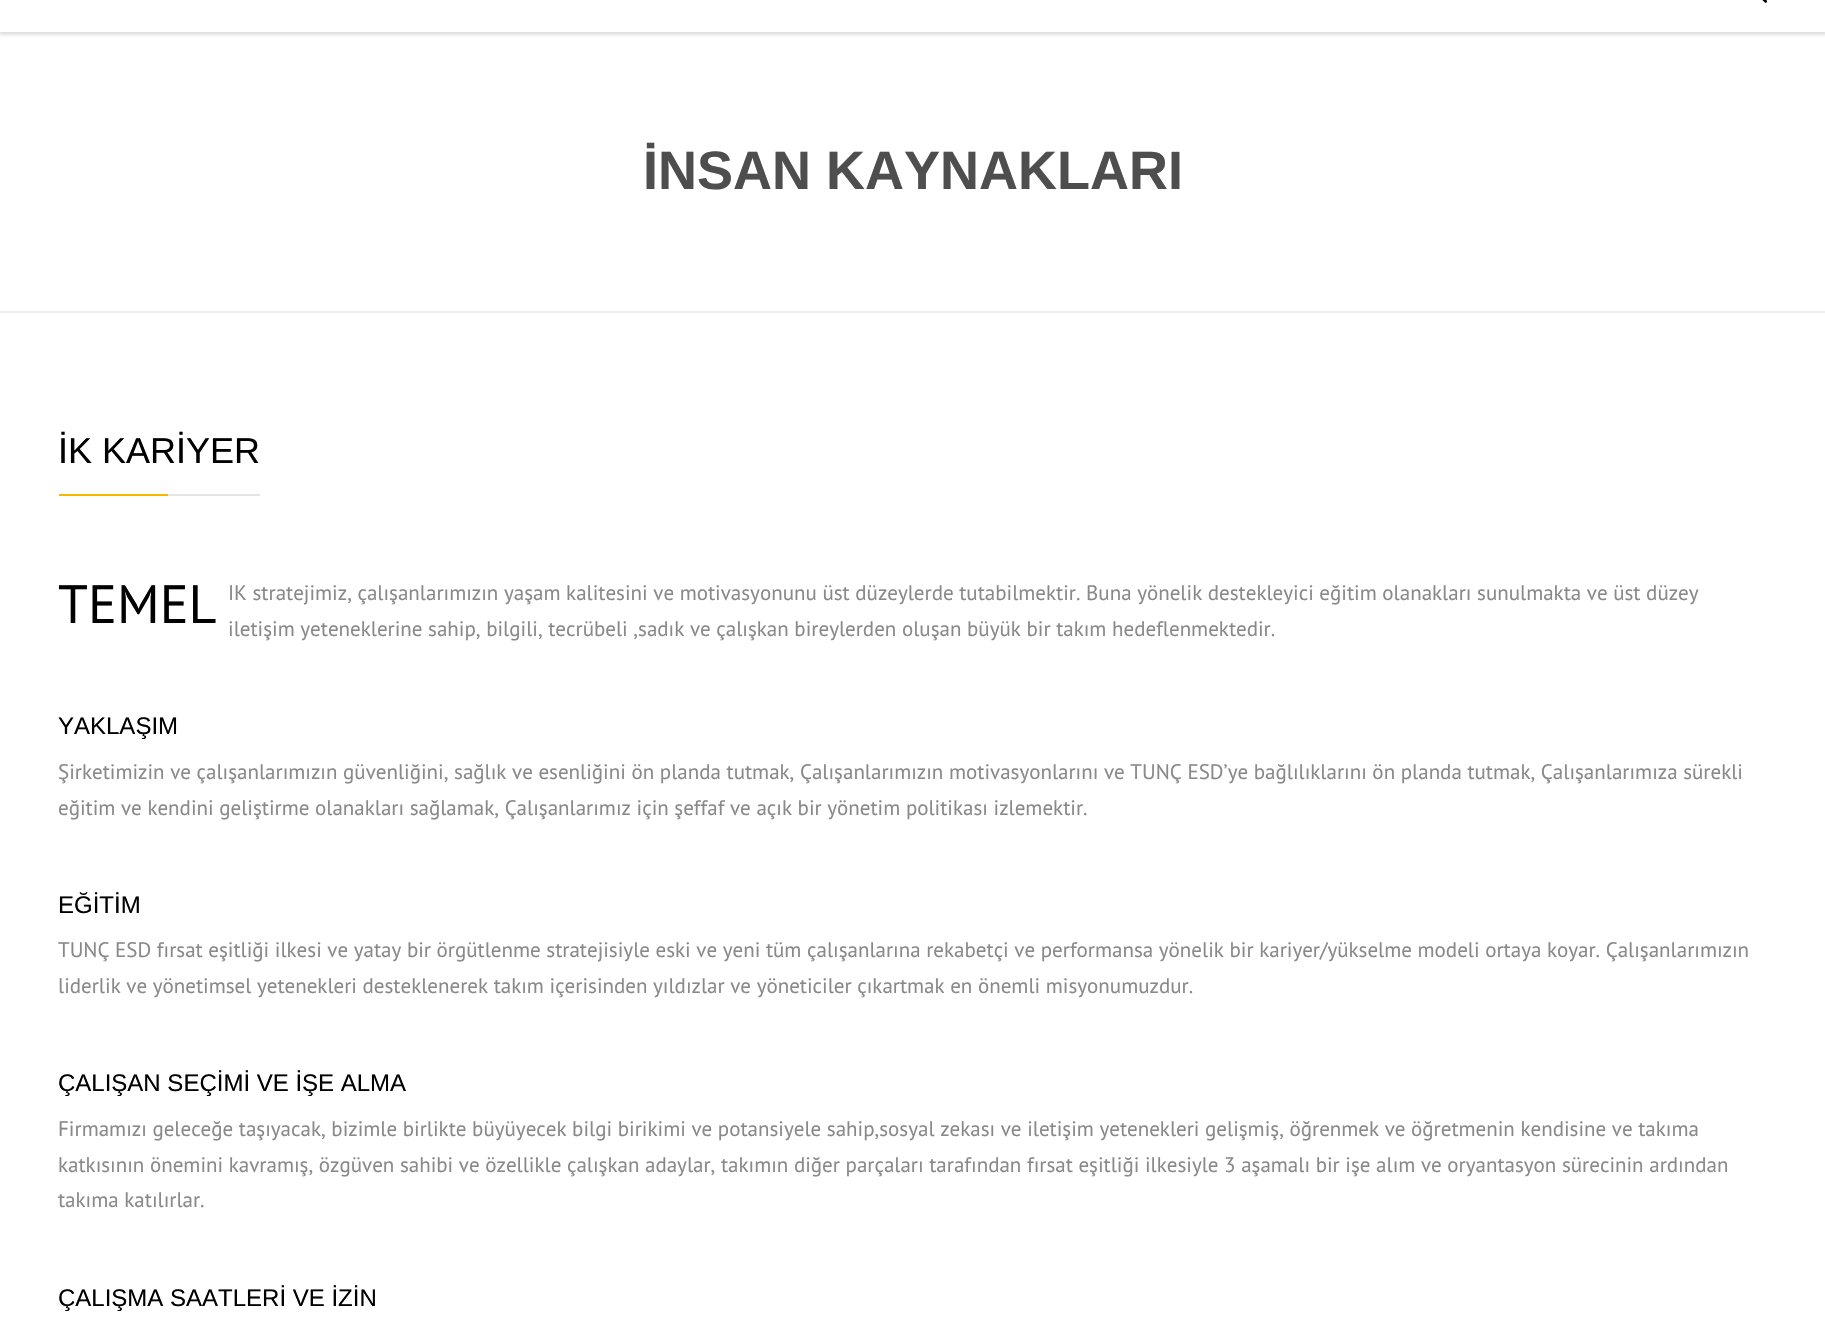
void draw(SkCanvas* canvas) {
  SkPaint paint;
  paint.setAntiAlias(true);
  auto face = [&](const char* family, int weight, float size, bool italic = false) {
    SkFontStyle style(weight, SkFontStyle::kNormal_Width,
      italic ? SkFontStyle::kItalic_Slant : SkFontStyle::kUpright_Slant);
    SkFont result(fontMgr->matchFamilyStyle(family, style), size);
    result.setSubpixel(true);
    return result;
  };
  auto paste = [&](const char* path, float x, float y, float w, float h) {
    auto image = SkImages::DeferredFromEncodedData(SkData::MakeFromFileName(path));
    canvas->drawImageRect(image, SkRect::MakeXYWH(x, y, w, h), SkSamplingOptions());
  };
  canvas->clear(0xffffffff);
  paint.setColor(0x1f000000);
  paint.setMaskFilter(SkMaskFilter::MakeBlur(kNormal_SkBlurStyle, 1.5f));
  canvas->drawRect(SkRect::MakeXYWH(-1, -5, 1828, 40), paint);
  paint.setMaskFilter(nullptr);
  paint.setColor(0xffffffff);
  canvas->drawRect(SkRect::MakeXYWH(0, 0, 1825, 32), paint);
  paste("img/1.png", 1762, 0, 6, 3);
  {
    const struct { float x, y, w, h; SkColor color; } items[] = {
      {0, 311, 1825, 2, 0xffeeeeee},
      {59, 494, 109, 2, 0xfffab702},
      {168, 494, 92, 2, 0xffe5e5e5},
    };
    for (auto [x, y, w, h, color] : items) {
      paint.setColor(color);
      canvas->drawRect(SkRect::MakeXYWH(x, y, w, h), paint);
    }
  }
  auto f0 = face("Liberation Sans", 700, 54);
  paint.setColor(0xff4e4e4e);
  canvas->drawString("İNSAN KAYNAKLARI", 643, 189, f0, paint);
  auto f1 = face("Liberation Sans", 400, 36);
  paint.setColor(0xff000000);
  canvas->drawString("İK KARİYER", 58, 463, f1, paint);
  auto f2 = face("PT Sans", 400, 54);
  canvas->drawString("TEMEL", 58, 623, f2, paint);
  auto f3 = face("PT Sans", 400, 21);
  paint.setColor(0xff898989);
  canvas->drawString("IK stratejimiz, çalışanlarımızın yaşam kalitesini ve motivasyonunu üst düzeylerde tutabilmektir. Buna yönelik destekleyici eğitim olanakları sunulmakta ve üst düzey", 228, 600, f3, paint);
  canvas->drawString("iletişim yeteneklerine sahip, bilgili, tecrübeli ,sadık ve çalışkan bireylerden oluşan büyük bir takım hedeflenmektedir.", 228, 636, f3, paint);
  auto f4 = face("Liberation Sans", 400, 24);
  paint.setColor(0xff000000);
  canvas->drawString("YAKLAŞIM", 58, 734, f4, paint);
  paint.setColor(0xff898989);
  canvas->drawString("Şirketimizin ve çalışanlarımızın güvenliğini, sağlık ve esenliğini ön planda tutmak, Çalışanlarımızın motivasyonlarını ve TUNÇ ESD’ye bağlılıklarını ön planda tutmak, Çalışanlarımıza sürekli", 58, 779, f3, paint);
  canvas->drawString("eğitim ve kendini geliştirme olanakları sağlamak, Çalışanlarımız için şeffaf ve açık bir yönetim politikası izlemektir.", 58, 815, f3, paint);
  paint.setColor(0xff000000);
  canvas->drawString("EĞİTİM", 58, 913, f4, paint);
  paint.setColor(0xff898989);
  canvas->drawString("TUNÇ ESD fırsat eşitliği ilkesi ve yatay bir örgütlenme stratejisiyle eski ve yeni tüm çalışanlarına rekabetçi ve performansa yönelik bir kariyer/yükselme modeli ortaya koyar. Çalışanlarımızın", 58, 957, f3, paint);
  canvas->drawString("liderlik ve yönetimsel yetenekleri desteklenerek takım içerisinden yıldızlar ve yöneticiler çıkartmak en önemli misyonumuzdur.", 58, 993, f3, paint);
  paint.setColor(0xff000000);
  canvas->drawString("ÇALIŞAN SEÇİMİ VE İŞE ALMA", 58, 1091, f4, paint);
  paint.setColor(0xff898989);
  {
    const struct { const char* s; float x, y; } items[] = {
      {"Firmamızı geleceğe taşıyacak, bizimle birlikte büyüyecek bilgi birikimi ve potansiyele sahip,sosyal zekası ve iletişim yetenekleri gelişmiş, öğrenmek ve öğretmenin kendisine ve takıma", 58, 1136},
      {"katkısının önemini kavramış, özgüven sahibi ve özellikle çalışkan adaylar, takımın diğer parçaları tarafından fırsat eşitliği ilkesiyle 3 aşamalı bir işe alım ve oryantasyon sürecinin ardından", 58, 1172},
      {"takıma katılırlar.", 58, 1207},
    };
    for (auto [s, x, y] : items) {
      canvas->drawString(s, x, y, f3, paint);
    }
  }
  paint.setColor(0xff000000);
  canvas->drawString("ÇALIŞMA SAATLERİ VE İZİN", 58, 1306, f4, paint);
}
